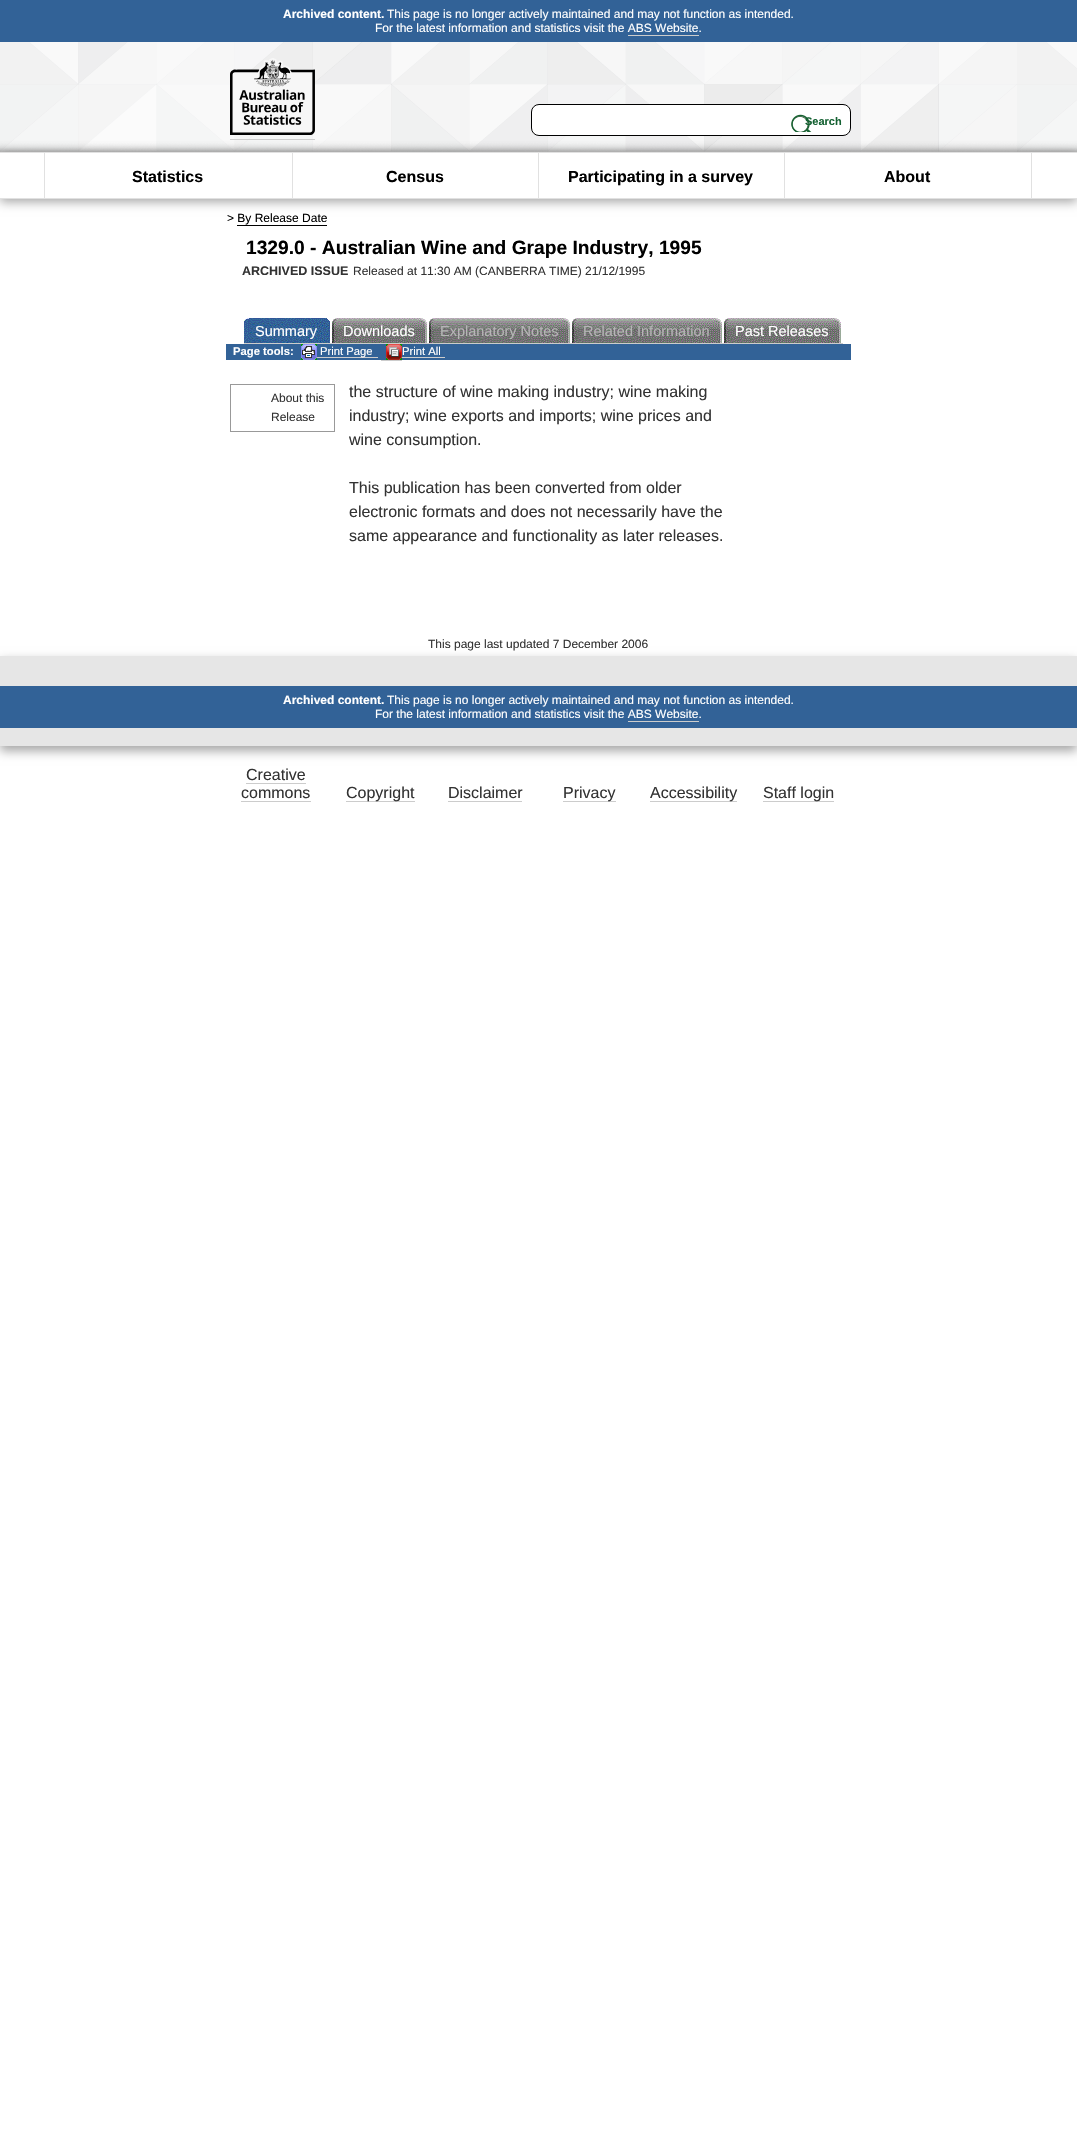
void draw(SkCanvas* canvas) {
  SkPaint paint;
  paint.setAntiAlias(true);
  auto face = [&](const char* family, int weight, float size, bool italic = false) {
    SkFontStyle style(weight, SkFontStyle::kNormal_Width,
      italic ? SkFontStyle::kItalic_Slant : SkFontStyle::kUpright_Slant);
    SkFont result(fontMgr->matchFamilyStyle(family, style), size);
    result.setSubpixel(true);
    return result;
  };
  auto paste = [&](const char* path, float x, float y, float w, float h) {
    auto image = SkImages::DeferredFromEncodedData(SkData::MakeFromFileName(path));
    canvas->drawImageRect(image, SkRect::MakeXYWH(x, y, w, h), SkSamplingOptions());
  };
  auto shape = [&](const char* data, bool evenOdd = false) {
    SkPath result = *SkParsePath::FromSVGString(data);
    if (evenOdd) result.setFillType(SkPathFillType::kEvenOdd);
    return result;
  };
  canvas->clear(0xffffffff);
  paint.setColor(0xff326297);
  canvas->drawRect(SkRect::MakeXYWH(0, 0, 1077, 42), paint);
  paint.setColor(0xffcccccc);
  canvas->drawRect(SkRect::MakeXYWH(628, 35, 71, 1), paint);
  paste("img/1.png", 0, 42, 1077, 110);
  canvas->save();
  canvas->clipPath(shape("M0 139H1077V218H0ZM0 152H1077V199H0Z", true), true);
  paint.setColor(0x59000000);
  paint.setMaskFilter(SkMaskFilter::MakeBlur(kNormal_SkBlurStyle, 5));
  canvas->drawRect(SkRect::MakeXYWH(0, 155, 1077, 47), paint);
  paint.setMaskFilter(nullptr);
  canvas->restore();
  paint.setColor(0xffcccccc);
  canvas->drawRect(SkRect::MakeXYWH(230, 139, 85, 1), paint);
  paste("img/2.png", 230, 58, 85, 77);
  paint.setColor(0xffffffff);
  canvas->drawRoundRect(SkRect::MakeXYWH(531.5f, 104.5f, 319, 31), 7.5f, 7.5f, paint);
  paint.setStroke(true);
  paint.setStrokeWidth(1);
  paint.setColor(0xff000000);
  canvas->drawRoundRect(SkRect::MakeXYWH(531.5f, 104.5f, 319, 31), 7.5f, 7.5f, paint);
  paste("img/3.png", 791, 114, 21, 18);
  paint.setStroke(false);
  {
    const struct { float x, y, w, h; SkColor color; } items[] = {
      {0, 152, 1077, 1, 0xffe1e1e1},
      {0, 198, 1077, 1, 0xffe1e1e1},
      {292, 153, 1, 45, 0xffe1e1e1},
      {44, 153, 1, 45, 0xffe1e1e1},
      {538, 153, 1, 45, 0xffe1e1e1},
      {784, 153, 1, 45, 0xffe1e1e1},
      {1031, 153, 1, 45, 0xffe1e1e1},
      {237, 225, 90, 1, 0xff000000},
    };
    for (auto [x, y, w, h, color] : items) {
      paint.setColor(color);
      canvas->drawRect(SkRect::MakeXYWH(x, y, w, h), paint);
    }
  }
  paste("img/4.png", 244, 318, 5, 25);
  paint.setColor(0xffcccccc);
  canvas->drawRect(SkRect::MakeXYWH(244, 343, 599, 1), paint);
  paste("img/5.png", 249, 318, 83, 25);
  paste("img/6.png", 332, 318, 5, 25);
  paste("img/7.png", 337, 318, 92, 25);
  paste("img/6.png", 429, 318, 5, 25);
  paste("img/8.png", 434, 318, 138, 25);
  paste("img/6.png", 572, 318, 5, 25);
  paste("img/9.png", 577, 318, 147, 25);
  paste("img/6.png", 724, 318, 5, 25);
  paste("img/10.png", 729, 318, 114, 25);
  paint.setColor(0xff326297);
  canvas->drawRect(SkRect::MakeXYWH(226, 344, 625, 16), paint);
  paste("img/11.png", 301, 344, 16, 16);
  paint.setColor(0xffcccccc);
  canvas->drawRect(SkRect::MakeXYWH(317, 357, 61, 1), paint);
  paste("img/12.png", 386, 344, 16, 16);
  canvas->drawRect(SkRect::MakeXYWH(381, 360, 21, 1), paint);
  canvas->drawRect(SkRect::MakeXYWH(402, 357, 43, 1), paint);
  paint.setStroke(true);
  paint.setColor(0xff999999);
  canvas->drawRect(SkRect::MakeXYWH(230.5f, 384.5f, 104, 47), paint);
  paint.setStroke(false);
  paint.setColor(0x59000000);
  paint.setMaskFilter(SkMaskFilter::MakeBlur(kNormal_SkBlurStyle, 5));
  canvas->drawRect(SkRect::MakeXYWH(0, 661, 1077, 90), paint);
  paint.setMaskFilter(nullptr);
  {
    const struct { float x, y, w, h; SkColor color; } items[] = {
      {0, 656, 1077, 90, 0xffe6e6e6},
      {0, 686, 1077, 42, 0xff326297},
      {628, 721, 71, 1, 0xffcccccc},
      {246, 783, 60, 1, 0xffcccccc},
      {241, 801, 70, 1, 0xffcccccc},
      {346, 801, 69, 1, 0xffcccccc},
      {448, 801, 74, 1, 0xffcccccc},
      {563, 801, 53, 1, 0xffcccccc},
      {650, 801, 87, 1, 0xffcccccc},
      {763, 801, 71, 1, 0xffcccccc},
    };
    for (auto [x, y, w, h, color] : items) {
      paint.setColor(color);
      canvas->drawRect(SkRect::MakeXYWH(x, y, w, h), paint);
    }
  }
  auto f0 = face("Liberation Sans", 700, 12);
  paint.setColor(0xffffffff);
  canvas->drawString("Archived content.", 283, 18, f0, paint);
  auto f1 = face("Liberation Sans", 400, 12);
  canvas->drawString("This page is no longer actively maintained and may not function as intended.", 387, 18, f1, paint);
  canvas->drawString("For the latest information and statistics visit the ABS Website.", 375, 32, f1, paint);
  auto f2 = face("Liberation Sans", 700, 11);
  paint.setColor(0xff146132);
  canvas->drawString("Search", 805, 125, f2, paint);
  auto f3 = face("Liberation Sans", 700, 16);
  paint.setColor(0xff000000);
  {
    const struct { const char* s; float x, y; } items[] = {
      {"Statistics", 132, 182},
      {"Census", 386, 182},
      {"Participating in a survey", 568, 182},
      {"About", 884, 182},
    };
    for (auto [s, x, y] : items) {
      canvas->drawString(s, x, y, f3, paint);
    }
  }
  canvas->drawString("> By Release Date", 227, 222, f1, paint);
  auto f4 = face("Liberation Sans", 700, 19.2f);
  canvas->drawString("1329.0 - Australian Wine and Grape Industry, 1995", 246, 254, f4, paint);
  auto f5 = face("Liberation Sans", 700, 12.5f);
  paint.setColor(0xff333333);
  canvas->drawString("ARCHIVED ISSUE", 242, 275, f5, paint);
  canvas->drawString("Released at 11:30 AM (CANBERRA TIME) 21/12/1995", 353, 275, f1, paint);
  auto f6 = face("Liberation Sans", 400, 14.5f);
  paint.setColor(0xffffffff);
  canvas->drawString("Summary", 255, 336, f6, paint);
  canvas->drawString("Downloads", 343, 336, f6, paint);
  paint.setColor(0xffb6b6b6);
  canvas->drawString("Explanatory Notes", 440, 336, f6, paint);
  canvas->drawString("Related Information", 583, 336, f6, paint);
  paint.setColor(0xffffffff);
  canvas->drawString("Past Releases", 735, 336, f6, paint);
  auto f7 = face("Liberation Sans", 700, 11.25f);
  canvas->drawString("Page tools:", 233, 355, f7, paint);
  auto f8 = face("Liberation Sans", 400, 11.25f);
  canvas->drawString("Print Page", 320, 355, f8, paint);
  canvas->drawString("Print All", 402, 355, f8, paint);
  paint.setColor(0xff333333);
  canvas->drawString("About this", 271, 402, f1, paint);
  canvas->drawString("Release", 271, 421, f1, paint);
  auto f9 = face("Liberation Sans", 400, 16);
  {
    const struct { const char* s; float x, y; } items[] = {
      {"the structure of wine making industry; wine making", 349, 397},
      {"industry; wine exports and imports; wine prices and", 349, 421},
      {"wine consumption.", 349, 445},
      {"This publication has been converted from older", 349, 493},
      {"electronic formats and does not necessarily have the", 349, 517},
      {"same appearance and functionality as later releases.", 349, 541},
    };
    for (auto [s, x, y] : items) {
      canvas->drawString(s, x, y, f9, paint);
    }
  }
  canvas->drawString("This page last updated 7 December 2006", 428, 648, f1, paint);
  paint.setColor(0xffffffff);
  canvas->drawString("Archived content.", 283, 704, f0, paint);
  canvas->drawString("This page is no longer actively maintained and may not function as intended.", 387, 704, f1, paint);
  canvas->drawString("For the latest information and statistics visit the ABS Website.", 375, 718, f1, paint);
  paint.setColor(0xff333333);
  {
    const struct { const char* s; float x, y; } items[] = {
      {"Creative", 246, 780},
      {"commons", 241, 798},
      {"Copyright", 346, 798},
      {"Disclaimer", 448, 798},
      {"Privacy", 563, 798},
      {"Accessibility", 650, 798},
      {"Staff login", 763, 798},
    };
    for (auto [s, x, y] : items) {
      canvas->drawString(s, x, y, f9, paint);
    }
  }
}
